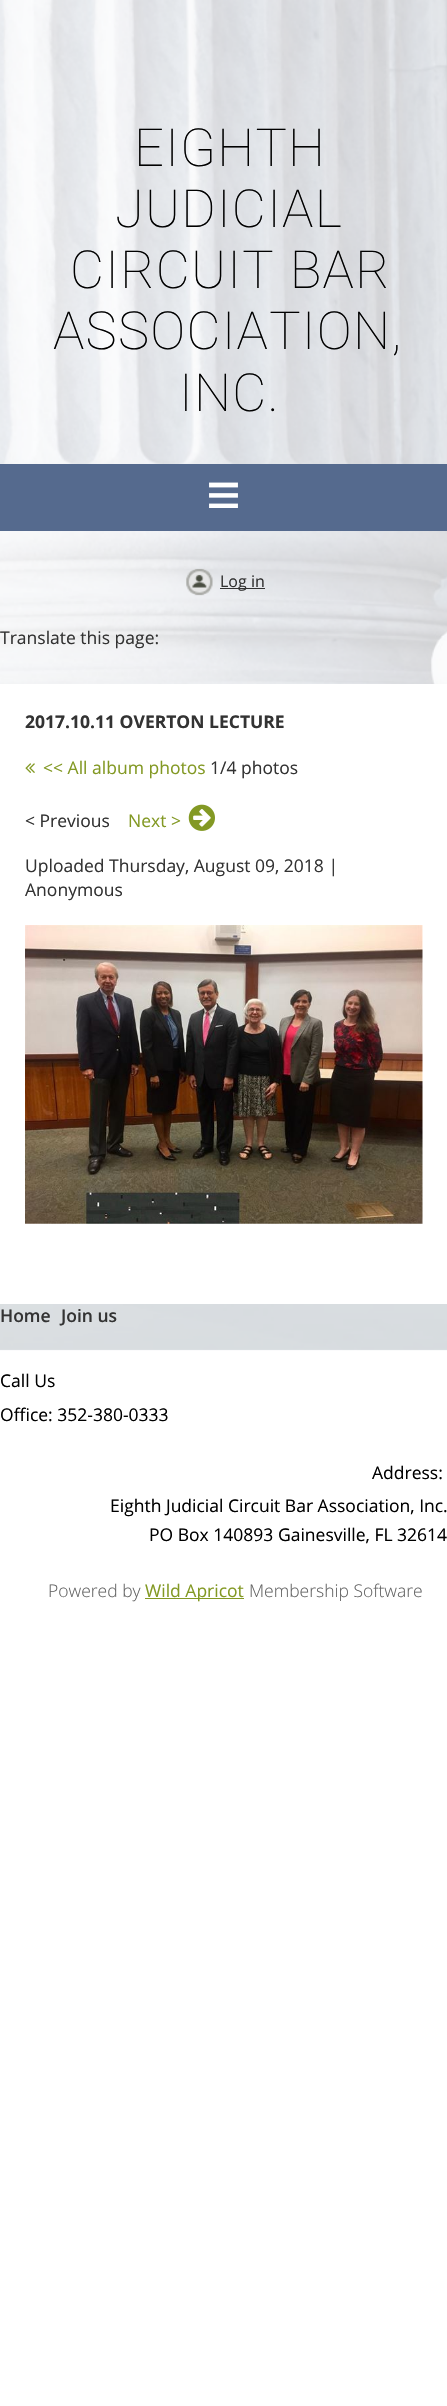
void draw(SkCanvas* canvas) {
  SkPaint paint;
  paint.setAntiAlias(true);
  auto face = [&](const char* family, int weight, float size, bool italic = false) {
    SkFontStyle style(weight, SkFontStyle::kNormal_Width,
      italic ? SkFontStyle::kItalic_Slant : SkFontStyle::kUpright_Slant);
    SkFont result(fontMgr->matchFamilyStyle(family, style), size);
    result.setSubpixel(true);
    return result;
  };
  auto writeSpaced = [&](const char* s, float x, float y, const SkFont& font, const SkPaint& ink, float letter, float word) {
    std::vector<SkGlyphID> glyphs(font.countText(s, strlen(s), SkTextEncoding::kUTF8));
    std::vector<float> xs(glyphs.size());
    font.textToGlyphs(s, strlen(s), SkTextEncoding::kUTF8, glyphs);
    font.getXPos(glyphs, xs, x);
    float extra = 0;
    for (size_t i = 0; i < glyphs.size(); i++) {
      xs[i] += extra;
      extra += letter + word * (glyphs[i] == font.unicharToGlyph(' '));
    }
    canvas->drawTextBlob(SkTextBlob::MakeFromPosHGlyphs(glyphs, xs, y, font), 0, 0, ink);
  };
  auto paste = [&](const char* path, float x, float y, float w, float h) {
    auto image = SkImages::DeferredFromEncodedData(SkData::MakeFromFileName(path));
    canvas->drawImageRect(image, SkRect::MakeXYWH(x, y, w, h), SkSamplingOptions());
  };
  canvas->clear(0xffffffff);
  paste("img/1.png", 0, 0, 447, 1351);
  paint.setColor(0xff556a8e);
  canvas->drawRect(SkRect::MakeXYWH(0, 464, 447, 67), paint);
  paste("img/2.png", 186, 568, 27, 28);
  paint.setColor(0xff333333);
  canvas->drawRect(SkRect::MakeXYWH(220, 588, 45, 1), paint);
  paint.setColor(0xffffffff);
  canvas->drawRect(SkRect::MakeXYWH(0, 684, 447, 620), paint);
  paste("img/3.png", 25, 763, 10, 10);
  paste("img/4.png", 188, 804, 27, 27);
  paste("img/5.png", 25, 925, 398, 299);
  paint.setColor(0xff839924);
  canvas->drawRect(SkRect::MakeXYWH(145, 1598, 99, 1), paint);
  auto f0 = face("Roboto", 100, 52.5f);
  paint.setColor(0xff000000);
  writeSpaced("EIGHTH", 134, 166, f0, paint, 1.25f, 0);
  writeSpaced("JUDICIAL", 115, 227, f0, paint, 1.25f, 0);
  writeSpaced("CIRCUIT BAR", 70, 288, f0, paint, 1.25f, 1);
  writeSpaced("ASSOCIATION,", 53, 349, f0, paint, 1.25f, 0);
  writeSpaced("INC.", 179, 411, f0, paint, 1.25f, 0);
  auto f1 = face("Liberation Serif", 700, 62);
  paint.setColor(0xffffffff);
  canvas->drawString("≡", 206, 516, f1, paint);
  auto f2 = face("Open Sans", 400, 16);
  paint.setColor(0xff333333);
  canvas->drawString("Log in", 220, 587, f2, paint);
  auto f3 = face("Open Sans", 400, 17.5f);
  canvas->drawString("Translate this page:", 0, 644, f3, paint);
  auto f4 = face("Open Sans", 700, 17.5f);
  canvas->drawString("2017.10.11 OVERTON LECTURE", 25, 728, f4, paint);
  paint.setColor(0xff839924);
  canvas->drawString("<< All album photos", 43, 774, f3, paint);
  paint.setColor(0xff333333);
  canvas->drawString("1/4 photos", 210, 774, f3, paint);
  canvas->drawString("< Previous", 25, 827, f3, paint);
  paint.setColor(0xff839924);
  canvas->drawString("Next >", 128, 827, f3, paint);
  paint.setColor(0xff333333);
  canvas->drawString("Uploaded Thursday, August 09, 2018 |", 25, 872, f3, paint);
  canvas->drawString("Anonymous", 25, 896, f3, paint);
  auto f5 = face("Open Sans", 600, 17.5f);
  canvas->drawString("Home", 0, 1322, f5, paint);
  canvas->drawString("Join us", 61, 1322, f5, paint);
  paint.setColor(0xff000000);
  {
    const struct { const char* s; float x, y; } items[] = {
      {"Call Us", 0, 1387},
      {"Office: 352-380-0333", 0, 1421},
      {"Address:", 372, 1479},
      {"Eighth Judicial Circuit Bar Association, Inc.", 110, 1512},
      {"PO Box 140893 Gainesville, FL 32614", 149, 1541},
    };
    for (auto [s, x, y] : items) {
      canvas->drawString(s, x, y, f3, paint);
    }
  }
  auto f6 = face("Open Sans", 300, 17.5f);
  paint.setColor(0xff646464);
  canvas->drawString("Powered by", 48, 1597, f6, paint);
  paint.setColor(0xff839924);
  canvas->drawString("Wild Apricot", 145, 1597, f3, paint);
  paint.setColor(0xff646464);
  canvas->drawString("Membership Software", 249, 1597, f6, paint);
}
